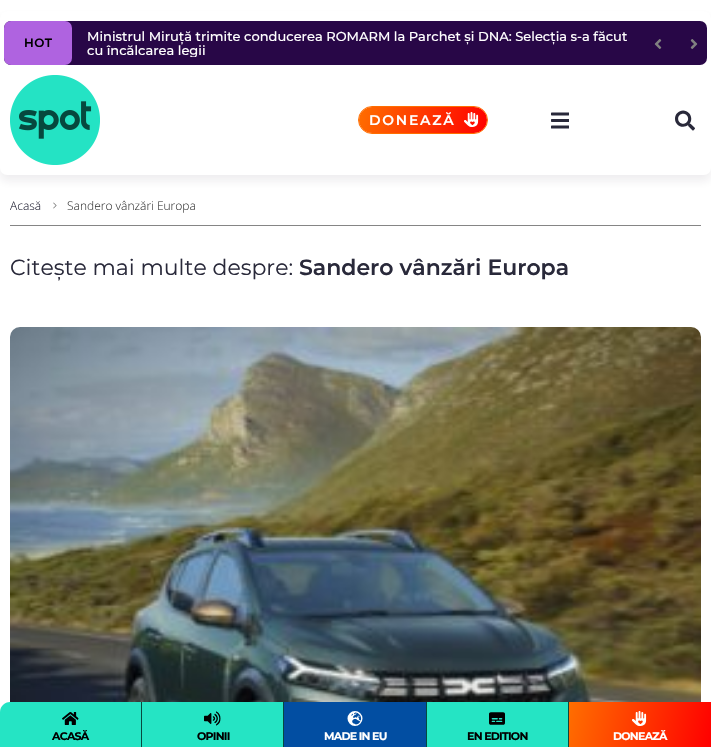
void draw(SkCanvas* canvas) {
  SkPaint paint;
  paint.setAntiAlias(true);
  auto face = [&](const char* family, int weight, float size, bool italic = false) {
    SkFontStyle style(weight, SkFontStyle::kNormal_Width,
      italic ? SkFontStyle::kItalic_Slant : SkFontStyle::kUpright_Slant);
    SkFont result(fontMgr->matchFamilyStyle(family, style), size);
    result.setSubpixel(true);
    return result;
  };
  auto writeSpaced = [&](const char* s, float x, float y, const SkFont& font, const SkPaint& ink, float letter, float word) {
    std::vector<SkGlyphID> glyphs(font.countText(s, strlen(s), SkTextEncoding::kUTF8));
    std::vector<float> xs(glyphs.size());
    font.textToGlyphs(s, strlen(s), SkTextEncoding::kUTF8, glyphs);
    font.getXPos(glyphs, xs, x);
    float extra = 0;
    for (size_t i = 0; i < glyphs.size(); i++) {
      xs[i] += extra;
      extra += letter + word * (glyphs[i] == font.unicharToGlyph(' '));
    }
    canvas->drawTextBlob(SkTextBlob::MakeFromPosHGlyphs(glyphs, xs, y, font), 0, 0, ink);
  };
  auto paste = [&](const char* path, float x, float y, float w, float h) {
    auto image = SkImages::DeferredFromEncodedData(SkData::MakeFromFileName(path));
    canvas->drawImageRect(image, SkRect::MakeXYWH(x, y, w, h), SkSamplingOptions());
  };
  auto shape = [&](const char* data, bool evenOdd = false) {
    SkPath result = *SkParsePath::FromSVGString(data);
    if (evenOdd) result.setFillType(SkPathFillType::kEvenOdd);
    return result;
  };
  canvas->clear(0xffffffff);
  paint.setColor(0x142b1c39);
  paint.setMaskFilter(SkMaskFilter::MakeBlur(kNormal_SkBlurStyle, 5));
  canvas->drawRoundRect(SkRect::MakeXYWH(0, 17, 711, 164), 7, 7, paint);
  paint.setMaskFilter(nullptr);
  paint.setColor(0xffffffff);
  canvas->drawRoundRect(SkRect::MakeXYWH(0, 11, 711, 164), 7, 7, paint);
  paint.setColor(0xff280747);
  canvas->drawRoundRect(SkRect::MakeXYWH(4, 21, 703, 44), 7, 7, paint);
  paint.setColor(0xffaf63e0);
  canvas->drawRoundRect(SkRect::MakeXYWH(4, 21, 68, 44), 7, 7, paint);
  paste("img/1.png", 654, 39, 8, 10);
  paste("img/2.png", 690, 39, 8, 10);
  paste("img/3.png", 10, 75, 90, 90);
  {
    const SkColor colors[] = {0xffff6e00, 0xffff0000};
    const float stops[] = {0, 1};
    const SkPoint ends[] = {{359, 105}, {487, 135}};
    paint.setShader(SkGradientShader::MakeLinear(ends, colors, stops, 2, SkTileMode::kClamp));
    paint.setAlpha(255);
  }
  canvas->drawRoundRect(SkRect::MakeXYWH(359, 107, 128, 26), 13, 13, paint);
  paint.setStroke(true);
  paint.setStrokeWidth(1);
  paint.setShader(nullptr);
  paint.setColor(0xffff6e00);
  canvas->drawRoundRect(SkRect::MakeXYWH(358.5f, 106.5f, 129, 27), 13.5f, 13.5f, paint);
  paste("img/4.png", 464, 112, 15, 15);
  paste("img/5.png", 551, 112, 18, 17);
  paste("img/6.png", 675, 110, 20, 21);
  paint.setStroke(false);
  paint.setColor(0xff858585);
  canvas->drawRect(SkRect::MakeXYWH(10, 225, 691, 1), paint);
  paste("img/7.png", 53, 202, 4, 7);
  paste("img/8.png", 10, 327, 691, 375);
  paint.setColor(0xff25e4c4);
  canvas->drawPath(shape("M10 702H701C706.5 702 711 706.5 711 712V747H0V712C0 706.5 4.5 702 10 702Z"), paint);
  paint.setColor(0xff07493f);
  canvas->drawRect(SkRect::MakeXYWH(141, 702, 1, 45), paint);
  paste("img/9.png", 62, 712, 17, 13);
  canvas->drawRect(SkRect::MakeXYWH(283, 702, 1, 45), paint);
  paste("img/10.png", 204, 711, 17, 15);
  paint.setColor(0xff024ea2);
  canvas->drawRect(SkRect::MakeXYWH(284, 702, 142, 45), paint);
  paint.setColor(0xff07493f);
  canvas->drawRect(SkRect::MakeXYWH(426, 702, 1, 45), paint);
  paste("img/11.png", 347, 711, 16, 15);
  canvas->drawRect(SkRect::MakeXYWH(568, 702, 1, 45), paint);
  paste("img/12.png", 489, 712, 16, 13);
  {
    const SkColor colors[] = {0xffff6e00, 0xffff0000};
    const float stops[] = {0, 1};
    const SkPoint ends[] = {{568, 708}, {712, 741}};
    paint.setShader(SkGradientShader::MakeLinear(ends, colors, stops, 2, SkTileMode::kClamp));
    paint.setAlpha(255);
  }
  canvas->drawRect(SkRect::MakeXYWH(569, 702, 142, 45), paint);
  paste("img/13.png", 632, 711, 15, 15);
  auto f0 = face("Montserrat", 600, 12);
  paint.setShader(nullptr);
  paint.setColor(0xff000000);
  writeSpaced("HOT", 24, 47, f0, paint, 0.5f, 0);
  auto f1 = face("Montserrat", 500, 13);
  paint.setColor(0xffffffff);
  canvas->drawString("Ministrul Miruță trimite conducerea ROMARM la Parchet și DNA: Selecția s-a făcut", 87, 41, f1, paint);
  canvas->save();
  canvas->clipRect(SkRect::MakeXYWH(87, 29, 540, 28));
  canvas->drawString("cu încălcarea legii", 87, 55, f1, paint);
  canvas->restore();
  auto f2 = face("Montserrat", 600, 14);
  writeSpaced("DONEAZĂ", 369, 125, f2, paint, 1.75f, 0);
  auto f3 = face("Open Sans", 300, 12);
  paint.setColor(0xff29293a);
  canvas->drawString("Acasă", 10, 210, f3, paint);
  paint.setColor(0xff3d3d3d);
  canvas->drawString("Sandero vânzări Europa", 67, 210, f3, paint);
  auto f4 = face("Montserrat", 400, 22);
  paint.setColor(0xff29293a);
  canvas->drawString("Citește mai multe despre:", 10, 275, f4, paint);
  auto f5 = face("Montserrat", 600, 22);
  canvas->drawString("Sandero vânzări Europa", 299, 275, f5, paint);
  auto f6 = face("Montserrat", 700, 11);
  paint.setColor(0xff000000);
  writeSpaced("ACASĂ", 52, 740, f6, paint, -0.75f, 0);
  writeSpaced("OPINII", 197, 740, f6, paint, -0.75f, 0);
  paint.setColor(0xffffffff);
  writeSpaced("MADE IN EU", 324, 740, f6, paint, -0.75f, 0);
  paint.setColor(0xff000000);
  writeSpaced("EN EDITION", 467, 740, f6, paint, -0.75f, 0);
  paint.setColor(0xffffffff);
  writeSpaced("DONEAZĂ", 613, 740, f6, paint, -0.75f, 0);
}
